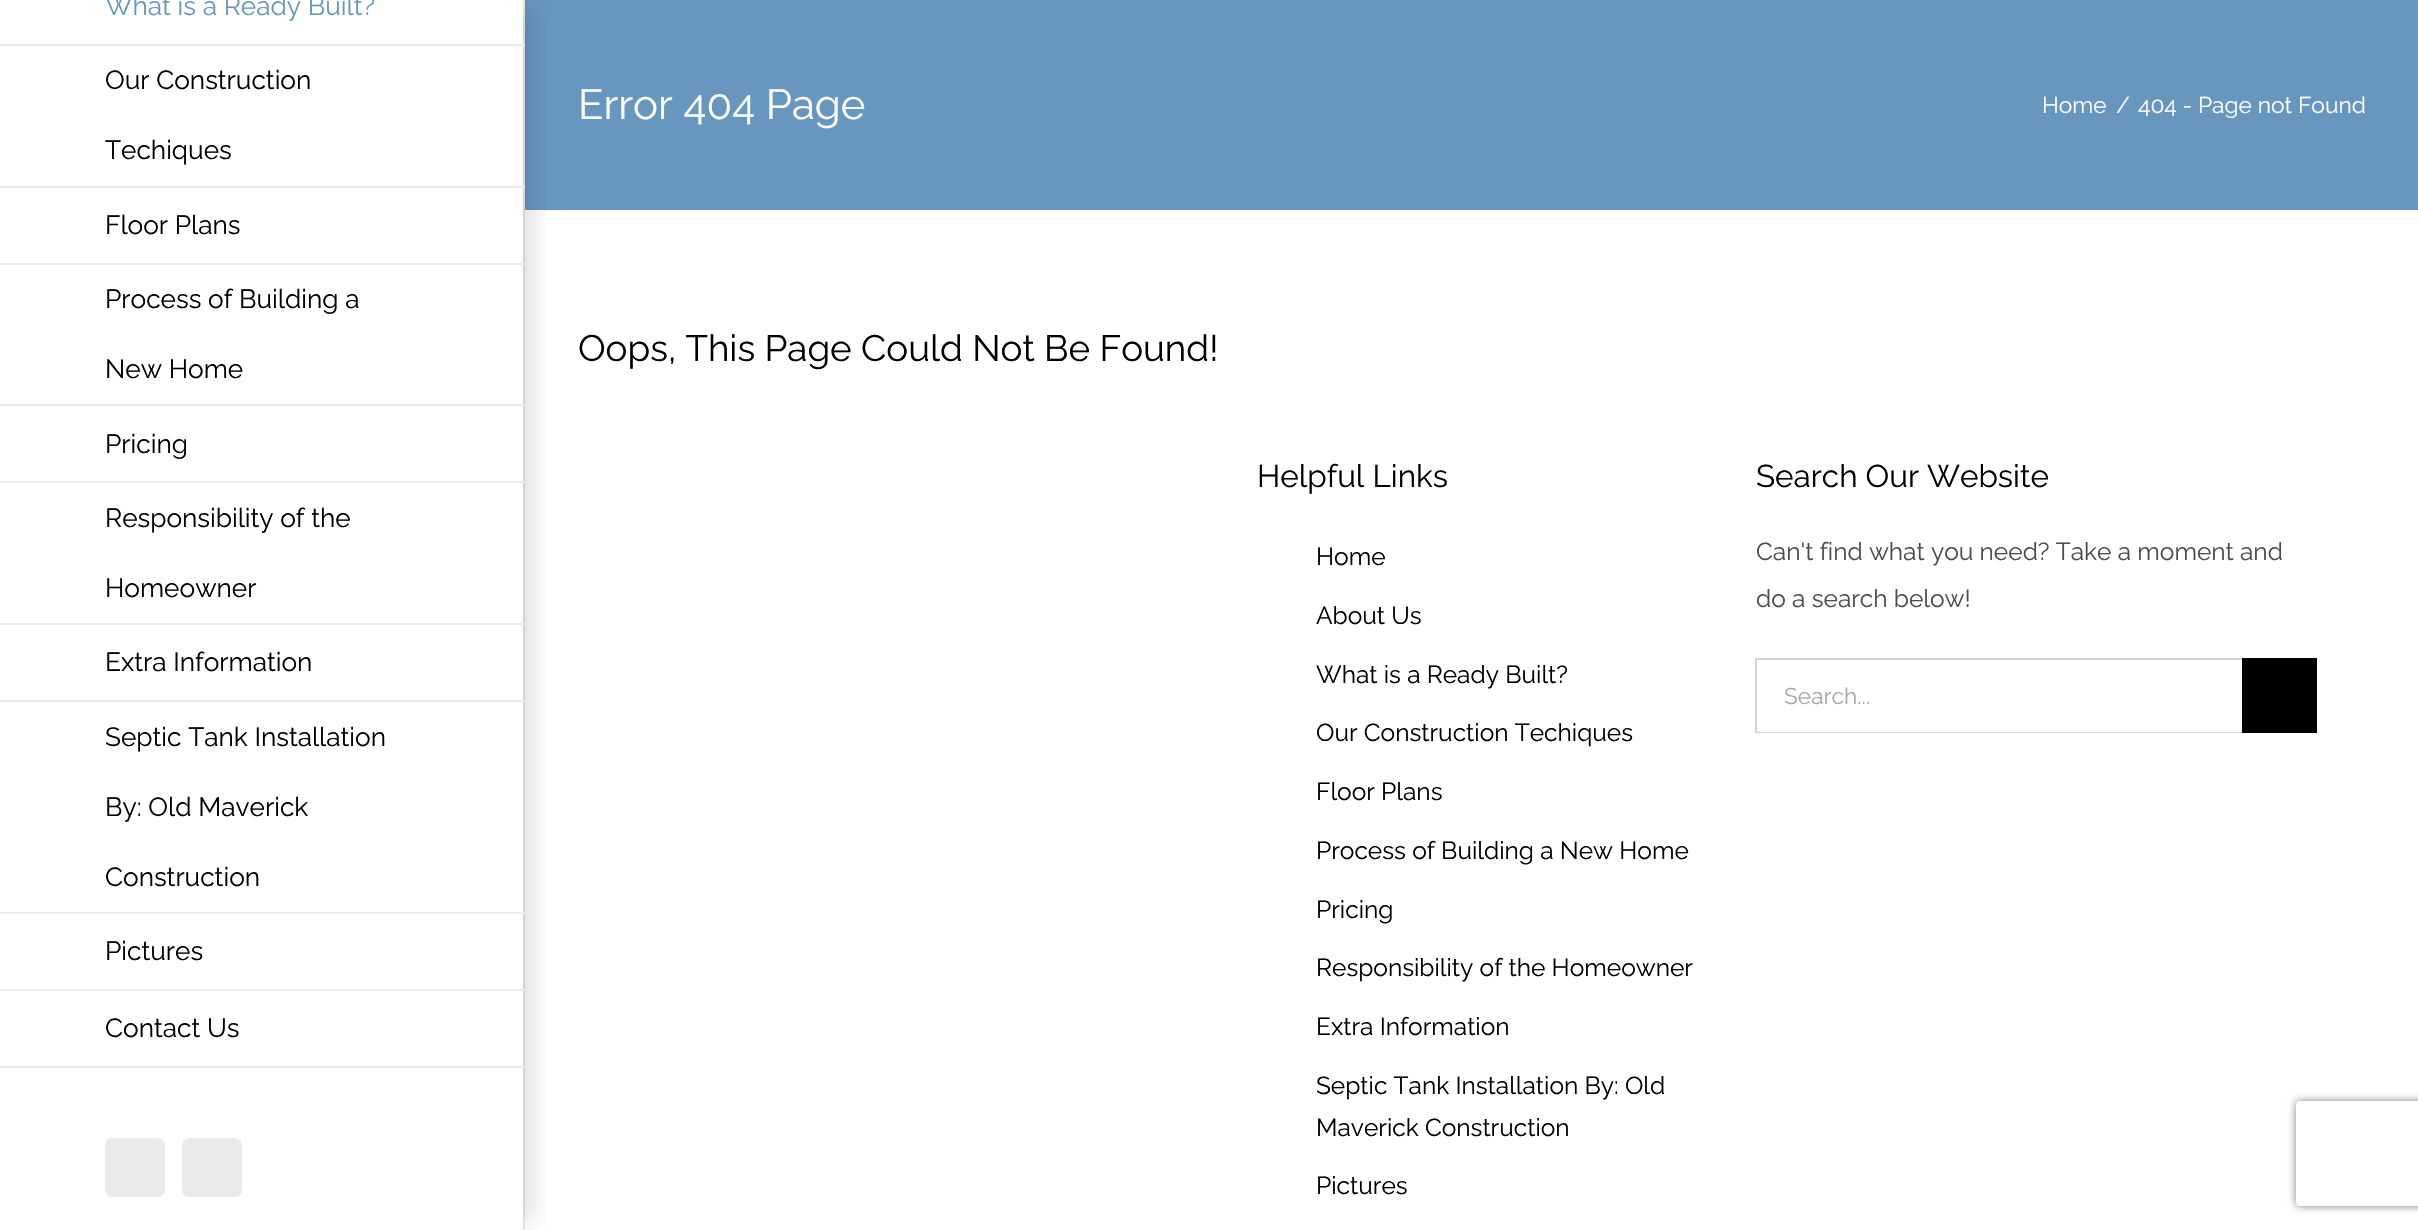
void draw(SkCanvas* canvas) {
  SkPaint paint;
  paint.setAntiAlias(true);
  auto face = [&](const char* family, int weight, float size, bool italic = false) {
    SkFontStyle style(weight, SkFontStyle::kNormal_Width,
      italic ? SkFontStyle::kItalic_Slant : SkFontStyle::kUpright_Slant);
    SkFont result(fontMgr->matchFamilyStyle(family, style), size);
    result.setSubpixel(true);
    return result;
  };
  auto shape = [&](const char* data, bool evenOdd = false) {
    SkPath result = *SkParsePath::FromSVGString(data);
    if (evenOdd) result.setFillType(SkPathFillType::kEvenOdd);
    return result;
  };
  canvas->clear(0xffffffff);
  paint.setColor(0xffeaeaea);
  canvas->drawRect(SkRect::MakeXYWH(523, 0, 2, 1230), paint);
  paint.setColor(0xff6796bf);
  canvas->drawRect(SkRect::MakeXYWH(525, 0, 1893, 210), paint);
  canvas->save();
  canvas->clipRect(SkRect::MakeXYWH(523, 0, 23, 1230));
  paint.setColor(0x24000000);
  paint.setMaskFilter(SkMaskFilter::MakeBlur(kNormal_SkBlurStyle, 13));
  canvas->drawRect(SkRect::MakeXYWH(506, 9, 26, 1213), paint);
  paint.setMaskFilter(nullptr);
  canvas->restore();
  {
    const struct { float x, y, w, h; SkColor color; } items[] = {
      {0, 44, 525, 2, 0xffeaeaea},
      {0, 186, 525, 2, 0xffeaeaea},
      {0, 263, 525, 2, 0xffeaeaea},
      {0, 404, 525, 2, 0xffeaeaea},
      {0, 481, 525, 2, 0xffeaeaea},
      {0, 623, 525, 2, 0xffeaeaea},
      {0, 700, 525, 2, 0xffeaeaea},
      {0, 912, 525, 2, 0xffeaeaea},
      {0, 989, 525, 2, 0xffeaeaea},
      {0, 1066, 525, 2, 0xffeaeaea},
    };
    for (auto [x, y, w, h, color] : items) {
      paint.setColor(color);
      canvas->drawRect(SkRect::MakeXYWH(x, y, w, h), paint);
    }
  }
  canvas->drawRoundRect(SkRect::MakeXYWH(106, 1139, 58, 57), 6, 6, paint);
  paint.setStroke(true);
  paint.setStrokeWidth(2);
  canvas->drawRoundRect(SkRect::MakeXYWH(106, 1139, 58, 57), 6, 6, paint);
  paint.setStroke(false);
  canvas->drawRoundRect(SkRect::MakeXYWH(183, 1139, 58, 57), 6, 6, paint);
  paint.setStroke(true);
  canvas->drawRoundRect(SkRect::MakeXYWH(183, 1139, 58, 57), 6, 6, paint);
  paint.setStroke(false);
  {
    const struct { float x, y, w, h; SkColor color; } items[] = {
      {1755, 658, 487, 2, 0xffd2d2d2},
      {1755, 732, 487, 1, 0xffd2d2d2},
      {1755, 658, 2, 75, 0xffd2d2d2},
      {2242, 658, 75, 75, 0xff000000},
    };
    for (auto [x, y, w, h, color] : items) {
      paint.setColor(color);
      canvas->drawRect(SkRect::MakeXYWH(x, y, w, h), paint);
    }
  }
  canvas->save();
  canvas->clipPath(shape("M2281 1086H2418V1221H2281ZM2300 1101H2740C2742 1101 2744 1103 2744 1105V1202C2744 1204 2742 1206 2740 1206H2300C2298 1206 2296 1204 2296 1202V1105C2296 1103 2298 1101 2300 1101Z", true), true);
  paint.setColor(0xff808080);
  paint.setMaskFilter(SkMaskFilter::MakeBlur(kNormal_SkBlurStyle, 4.5f));
  canvas->drawRoundRect(SkRect::MakeXYWH(2296, 1101, 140, 105), 4, 4, paint);
  paint.setMaskFilter(nullptr);
  canvas->restore();
  auto f0 = face("Raleway", 400, 26.25f);
  paint.setColor(0xff6796bf);
  canvas->drawString("What is a Ready Built?", 105, 15, f0, paint);
  paint.setColor(0xff000000);
  {
    const struct { const char* s; float x, y; } items[] = {
      {"Our Construction", 105, 89},
      {"Techiques", 105, 159},
      {"Floor Plans", 105, 234},
      {"Process of Building a", 105, 308},
      {"New Home", 105, 378},
      {"Pricing", 105, 453},
      {"Responsibility of the", 105, 527},
      {"Homeowner", 105, 597},
      {"Extra Information", 105, 671},
      {"Septic Tank Installation", 105, 746},
      {"By: Old Maverick", 105, 816},
      {"Construction", 105, 886},
      {"Pictures", 105, 960},
      {"Contact Us", 105, 1037},
    };
    for (auto [s, x, y] : items) {
      canvas->drawString(s, x, y, f0, paint);
    }
  }
  auto f1 = face("Raleway", 400, 42);
  paint.setColor(0xffffffff);
  canvas->drawString("Error 404 Page", 578, 119, f1, paint);
  auto f2 = face("Raleway", 400, 22.75f);
  {
    const struct { const char* s; float x, y; } items[] = {
      {"Home", 2042, 113},
      {"/", 2116, 113},
      {"404 - Page not Found", 2138, 113},
    };
    for (auto [s, x, y] : items) {
      canvas->drawString(s, x, y, f2, paint);
    }
  }
  auto f3 = face("Raleway", 400, 36.75f);
  paint.setColor(0xff000000);
  canvas->drawString("Oops, This Page Could Not Be Found!", 578, 361, f3, paint);
  auto f4 = face("Raleway", 400, 31.5f);
  canvas->drawString("Helpful Links", 1257, 487, f4, paint);
  auto f5 = face("Raleway", 400, 24.5f);
  {
    const struct { const char* s; float x, y; } items[] = {
      {"Home", 1316, 565},
      {"About Us", 1316, 624},
      {"What is a Ready Built?", 1316, 683},
      {"Our Construction Techiques", 1316, 741},
      {"Floor Plans", 1316, 800},
      {"Process of Building a New Home", 1316, 859},
      {"Pricing", 1316, 918},
      {"Responsibility of the Homeowner", 1316, 976},
      {"Extra Information", 1316, 1035},
      {"Septic Tank Installation By: Old", 1316, 1094},
      {"Maverick Construction", 1316, 1136},
      {"Pictures", 1316, 1194},
    };
    for (auto [s, x, y] : items) {
      canvas->drawString(s, x, y, f5, paint);
    }
  }
  canvas->drawString("Search Our Website", 1756, 487, f4, paint);
  paint.setColor(0xff4c4c4c);
  canvas->drawString("Can't find what you need? Take a moment and", 1756, 560, f5, paint);
  canvas->drawString("do a search below!", 1756, 607, f5, paint);
  paint.setColor(0xffaaa9a9);
  canvas->drawString("Search...", 1784, 704, f2, paint);
}
